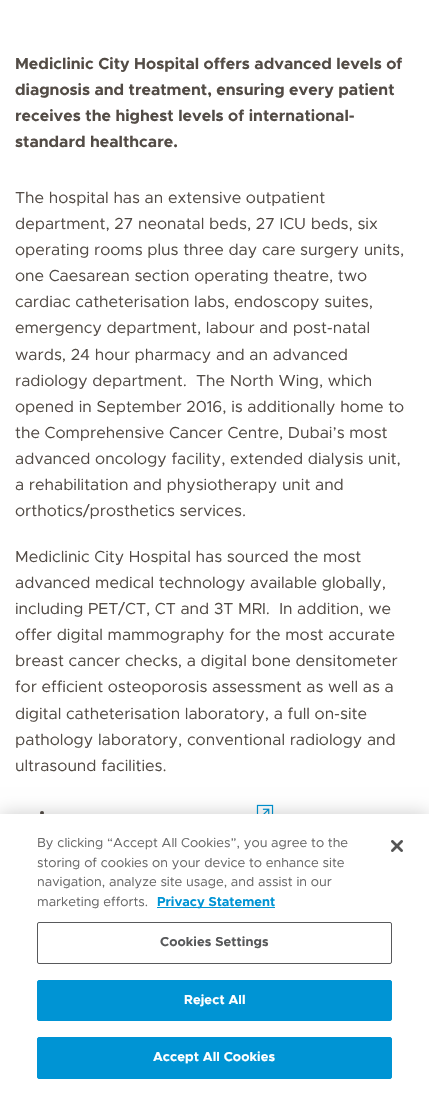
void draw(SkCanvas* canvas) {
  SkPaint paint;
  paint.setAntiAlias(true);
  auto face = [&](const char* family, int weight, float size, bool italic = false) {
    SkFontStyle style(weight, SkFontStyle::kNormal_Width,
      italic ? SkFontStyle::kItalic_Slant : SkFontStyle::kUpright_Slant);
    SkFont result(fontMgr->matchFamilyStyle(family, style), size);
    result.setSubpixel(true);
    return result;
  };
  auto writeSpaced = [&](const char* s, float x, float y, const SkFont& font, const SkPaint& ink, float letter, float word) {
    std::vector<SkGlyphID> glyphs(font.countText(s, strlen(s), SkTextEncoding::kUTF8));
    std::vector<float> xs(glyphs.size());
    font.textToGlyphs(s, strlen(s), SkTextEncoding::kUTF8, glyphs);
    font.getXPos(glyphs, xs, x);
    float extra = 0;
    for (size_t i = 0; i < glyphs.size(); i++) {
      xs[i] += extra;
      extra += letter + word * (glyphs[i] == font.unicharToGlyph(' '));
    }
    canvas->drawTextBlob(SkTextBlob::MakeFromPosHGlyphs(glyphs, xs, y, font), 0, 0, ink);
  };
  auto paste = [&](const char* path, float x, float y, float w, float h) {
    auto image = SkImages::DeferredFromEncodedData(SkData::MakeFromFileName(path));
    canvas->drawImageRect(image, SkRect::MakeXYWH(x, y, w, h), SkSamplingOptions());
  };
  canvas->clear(0xffffffff);
  paint.setColor(0xff534c46);
  canvas->drawCircle(42, 813, 2, paint);
  paste("img/1.png", 256, 804, 18, 10);
  paint.setColor(0x33000000);
  paint.setMaskFilter(SkMaskFilter::MakeBlur(kNormal_SkBlurStyle, 9));
  canvas->drawRect(SkRect::MakeXYWH(0, 814, 429, 281), paint);
  paint.setMaskFilter(nullptr);
  paint.setColor(0xffffffff);
  canvas->drawRect(SkRect::MakeXYWH(0, 814, 429, 281), paint);
  paint.setColor(0xff0094d4);
  canvas->drawRect(SkRect::MakeXYWH(157, 907, 118, 1), paint);
  paint.setStroke(true);
  paint.setStrokeWidth(1);
  paint.setColor(0xff58595b);
  canvas->drawRoundRect(SkRect::MakeXYWH(37.5f, 922.5f, 354, 41), 1.5f, 1.5f, paint);
  paint.setStroke(false);
  paint.setColor(0xff0094d4);
  canvas->drawRoundRect(SkRect::MakeXYWH(37.5f, 980.5f, 354, 40), 1.5f, 1.5f, paint);
  paint.setStroke(true);
  canvas->drawRoundRect(SkRect::MakeXYWH(37.5f, 980.5f, 354, 40), 1.5f, 1.5f, paint);
  paint.setStroke(false);
  canvas->drawRoundRect(SkRect::MakeXYWH(37.5f, 1037.5f, 354, 41), 1.5f, 1.5f, paint);
  paint.setStroke(true);
  canvas->drawRoundRect(SkRect::MakeXYWH(37.5f, 1037.5f, 354, 41), 1.5f, 1.5f, paint);
  paste("img/2.png", 391, 840, 12, 12);
  auto f0 = face("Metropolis", 700, 16);
  paint.setStroke(false);
  paint.setColor(0xff534c46);
  {
    const struct { const char* s; float x, y; } items[] = {
      {"Mediclinic City Hospital offers advanced levels of", 15, 69},
      {"diagnosis and treatment, ensuring every patient", 15, 95},
      {"receives the highest levels of international-", 15, 121},
      {"standard healthcare.", 15, 147},
    };
    for (auto [s, x, y] : items) {
      canvas->drawString(s, x, y, f0, paint);
    }
  }
  auto f1 = face("Metropolis", 400, 16);
  {
    const struct { const char* s; float x, y; } items[] = {
      {"The hospital has an extensive outpatient", 15, 203},
      {"department, 27 neonatal beds, 27 ICU beds, six", 15, 229},
      {"operating rooms plus three day care surgery units,", 15, 255},
      {"one Caesarean section operating theatre, two", 15, 281},
      {"cardiac catheterisation labs, endoscopy suites,", 15, 307},
      {"emergency department, labour and post-natal", 15, 333},
      {"wards, 24 hour pharmacy and an advanced", 15, 360},
      {"radiology department.  The North Wing, which", 15, 386},
      {"opened in September 2016, is additionally home to", 15, 412},
      {"the Comprehensive Cancer Centre, Dubai’s most", 15, 438},
      {"advanced oncology facility, extended dialysis unit,", 15, 464},
      {"a rehabilitation and physiotherapy unit and", 15, 490},
      {"orthotics/prosthetics services.", 15, 516},
      {"Mediclinic City Hospital has sourced the most", 15, 562},
      {"advanced medical technology available globally,", 15, 588},
      {"including PET/CT, CT and 3T MRI.  In addition, we", 15, 614},
      {"offer digital mammography for the most accurate", 15, 640},
      {"breast cancer checks, a digital bone densitometer", 15, 666},
      {"for efficient osteoporosis assessment as well as a", 15, 692},
      {"digital catheterisation laboratory, a full on-site", 15, 719},
      {"pathology laboratory, conventional radiology and", 15, 745},
      {"ultrasound facilities.", 15, 771},
    };
    for (auto [s, x, y] : items) {
      canvas->drawString(s, x, y, f1, paint);
    }
  }
  auto f2 = face("Metropolis", 400, 13);
  paint.setColor(0xff696969);
  {
    const struct { const char* s; float x, y; } items[] = {
      {"By clicking “Accept All Cookies”, you agree to the", 37, 847},
      {"storing of cookies on your device to enhance site", 37, 867},
      {"navigation, analyze site usage, and assist in our", 37, 886},
      {"marketing efforts.", 37, 906},
    };
    for (auto [s, x, y] : items) {
      canvas->drawString(s, x, y, f2, paint);
    }
  }
  auto f3 = face("Metropolis", 700, 13);
  paint.setColor(0xff0094d4);
  canvas->drawString("Privacy Statement", 157, 906, f3, paint);
  paint.setColor(0xff58595b);
  writeSpaced("Cookies Settings", 160, 946, f3, paint, 0.1f, 0);
  paint.setColor(0xffffffff);
  writeSpaced("Reject All", 184, 1004, f3, paint, 0.1f, 0);
  writeSpaced("Accept All Cookies", 153, 1061, f3, paint, 0.1f, 0);
}
